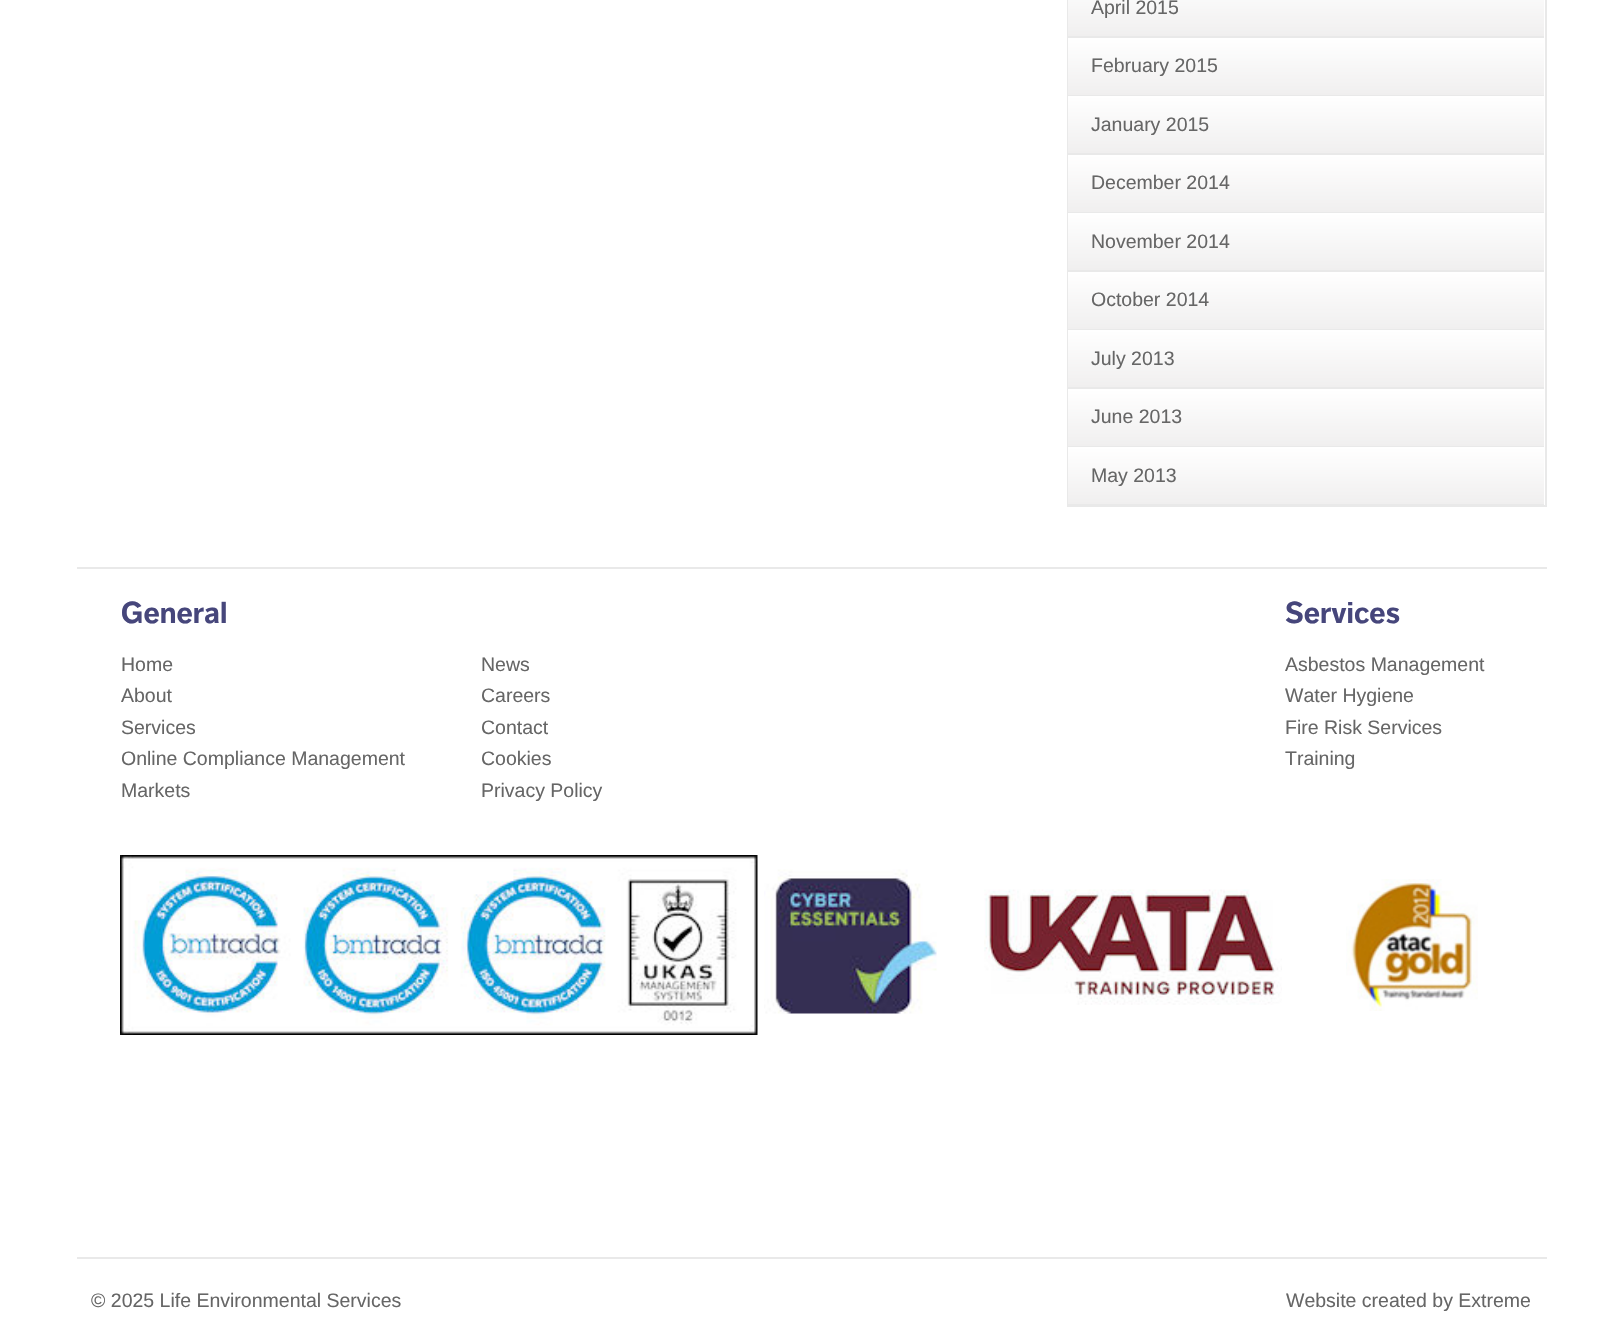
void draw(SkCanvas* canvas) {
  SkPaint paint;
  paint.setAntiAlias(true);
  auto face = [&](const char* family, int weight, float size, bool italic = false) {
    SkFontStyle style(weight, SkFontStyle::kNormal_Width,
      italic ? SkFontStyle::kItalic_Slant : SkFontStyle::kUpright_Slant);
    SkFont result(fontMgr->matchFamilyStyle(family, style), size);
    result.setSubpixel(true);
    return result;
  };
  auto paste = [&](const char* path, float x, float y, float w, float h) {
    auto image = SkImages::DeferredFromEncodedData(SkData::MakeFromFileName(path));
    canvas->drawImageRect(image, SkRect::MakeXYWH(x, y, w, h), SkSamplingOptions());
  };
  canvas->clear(0xffffffff);
  paint.setStroke(true);
  paint.setStrokeWidth(2);
  paint.setColor(0xffe9e9e9);
  canvas->drawRect(SkRect::MakeXYWH(1068, -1, 478, 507), paint);
  paint.setStroke(false);
  {
    const SkColor colors[] = {0xfff0efef, 0xffffffff};
    const float stops[] = {0, 1};
    const SkPoint ends[] = {{1068, 36}, {1068, -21}};
    paint.setShader(SkGradientShader::MakeLinear(ends, colors, stops, 2, SkTileMode::kClamp));
    paint.setAlpha(255);
  }
  canvas->drawRect(SkRect::MakeXYWH(1068, 0, 476, 36), paint);
  paint.setShader(nullptr);
  paint.setColor(0xffe9e9e9);
  canvas->drawRect(SkRect::MakeXYWH(1068, 36, 476, 2), paint);
  {
    const SkColor colors[] = {0xfff0efef, 0xffffffff};
    const float stops[] = {0, 1};
    const SkPoint ends[] = {{1068, 95}, {1068, 38}};
    paint.setShader(SkGradientShader::MakeLinear(ends, colors, stops, 2, SkTileMode::kClamp));
    paint.setAlpha(255);
  }
  canvas->drawRect(SkRect::MakeXYWH(1068, 38, 476, 57), paint);
  paint.setShader(nullptr);
  paint.setColor(0xffe9e9e9);
  canvas->drawRect(SkRect::MakeXYWH(1068, 95, 476, 1), paint);
  {
    const SkColor colors[] = {0xfff0efef, 0xffffffff};
    const float stops[] = {0, 1};
    const SkPoint ends[] = {{1068, 153}, {1068, 96}};
    paint.setShader(SkGradientShader::MakeLinear(ends, colors, stops, 2, SkTileMode::kClamp));
    paint.setAlpha(255);
  }
  canvas->drawRect(SkRect::MakeXYWH(1068, 96, 476, 57), paint);
  paint.setShader(nullptr);
  paint.setColor(0xffe9e9e9);
  canvas->drawRect(SkRect::MakeXYWH(1068, 153, 476, 2), paint);
  {
    const SkColor colors[] = {0xfff0efef, 0xffffffff};
    const float stops[] = {0, 1};
    const SkPoint ends[] = {{1068, 212}, {1068, 155}};
    paint.setShader(SkGradientShader::MakeLinear(ends, colors, stops, 2, SkTileMode::kClamp));
    paint.setAlpha(255);
  }
  canvas->drawRect(SkRect::MakeXYWH(1068, 155, 476, 57), paint);
  paint.setShader(nullptr);
  paint.setColor(0xffe9e9e9);
  canvas->drawRect(SkRect::MakeXYWH(1068, 212, 476, 1), paint);
  {
    const SkColor colors[] = {0xfff0efef, 0xffffffff};
    const float stops[] = {0, 1};
    const SkPoint ends[] = {{1068, 270}, {1068, 213}};
    paint.setShader(SkGradientShader::MakeLinear(ends, colors, stops, 2, SkTileMode::kClamp));
    paint.setAlpha(255);
  }
  canvas->drawRect(SkRect::MakeXYWH(1068, 213, 476, 57), paint);
  paint.setShader(nullptr);
  paint.setColor(0xffe9e9e9);
  canvas->drawRect(SkRect::MakeXYWH(1068, 270, 476, 2), paint);
  {
    const SkColor colors[] = {0xfff0efef, 0xffffffff};
    const float stops[] = {0, 1};
    const SkPoint ends[] = {{1068, 329}, {1068, 272}};
    paint.setShader(SkGradientShader::MakeLinear(ends, colors, stops, 2, SkTileMode::kClamp));
    paint.setAlpha(255);
  }
  canvas->drawRect(SkRect::MakeXYWH(1068, 272, 476, 57), paint);
  paint.setShader(nullptr);
  paint.setColor(0xffe9e9e9);
  canvas->drawRect(SkRect::MakeXYWH(1068, 329, 476, 1), paint);
  {
    const SkColor colors[] = {0xfff0efef, 0xffffffff};
    const float stops[] = {0, 1};
    const SkPoint ends[] = {{1068, 387}, {1068, 330}};
    paint.setShader(SkGradientShader::MakeLinear(ends, colors, stops, 2, SkTileMode::kClamp));
    paint.setAlpha(255);
  }
  canvas->drawRect(SkRect::MakeXYWH(1068, 330, 476, 57), paint);
  paint.setShader(nullptr);
  paint.setColor(0xffe9e9e9);
  canvas->drawRect(SkRect::MakeXYWH(1068, 387, 476, 2), paint);
  {
    const SkColor colors[] = {0xfff0efef, 0xffffffff};
    const float stops[] = {0, 1};
    const SkPoint ends[] = {{1068, 446}, {1068, 389}};
    paint.setShader(SkGradientShader::MakeLinear(ends, colors, stops, 2, SkTileMode::kClamp));
    paint.setAlpha(255);
  }
  canvas->drawRect(SkRect::MakeXYWH(1068, 389, 476, 57), paint);
  paint.setShader(nullptr);
  paint.setColor(0xffe9e9e9);
  canvas->drawRect(SkRect::MakeXYWH(1068, 446, 476, 1), paint);
  {
    const SkColor colors[] = {0xfff0efef, 0xffffffff};
    const float stops[] = {0, 1};
    const SkPoint ends[] = {{1068, 504}, {1068, 447}};
    paint.setShader(SkGradientShader::MakeLinear(ends, colors, stops, 2, SkTileMode::kClamp));
    paint.setAlpha(255);
  }
  canvas->drawRect(SkRect::MakeXYWH(1068, 447, 476, 57), paint);
  paint.setShader(nullptr);
  paint.setColor(0xffe9e9e9);
  canvas->drawRect(SkRect::MakeXYWH(1068, 504, 476, 1), paint);
  canvas->drawRect(SkRect::MakeXYWH(77, 567, 1470, 2), paint);
  paste("img/1.png", 120, 855, 638, 180);
  paste("img/2.png", 764, 869, 173, 145);
  paste("img/3.png", 984, 889, 298, 116);
  paste("img/4.png", 1346, 879, 132, 132);
  canvas->drawRect(SkRect::MakeXYWH(77, 1257, 1470, 2), paint);
  auto f0 = face("Liberation Sans", 400, 19.5f);
  paint.setColor(0xff666666);
  {
    const struct { const char* s; float x, y; } items[] = {
      {"April 2015", 1091, 14},
      {"February 2015", 1091, 72},
      {"January 2015", 1091, 131},
      {"December 2014", 1091, 189},
      {"November 2014", 1091, 248},
      {"October 2014", 1091, 306},
      {"July 2013", 1091, 365},
      {"June 2013", 1091, 423},
      {"May 2013", 1091, 482},
    };
    for (auto [s, x, y] : items) {
      canvas->drawString(s, x, y, f0, paint);
    }
  }
  auto f1 = face("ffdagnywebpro", 700, 30);
  paint.setColor(0xff46467b);
  canvas->drawString("General", 121, 623, f1, paint);
  paint.setColor(0xff666666);
  {
    const struct { const char* s; float x, y; } items[] = {
      {"Home", 121, 671},
      {"About", 121, 702},
      {"Services", 121, 734},
      {"Online Compliance Management", 121, 765},
      {"Markets", 121, 797},
      {"News", 481, 671},
      {"Careers", 481, 702},
      {"Contact", 481, 734},
      {"Cookies", 481, 765},
      {"Privacy Policy", 481, 797},
    };
    for (auto [s, x, y] : items) {
      canvas->drawString(s, x, y, f0, paint);
    }
  }
  paint.setColor(0xff46467b);
  canvas->drawString("Services", 1285, 623, f1, paint);
  paint.setColor(0xff666666);
  {
    const struct { const char* s; float x, y; } items[] = {
      {"Asbestos Management", 1285, 671},
      {"Water Hygiene", 1285, 702},
      {"Fire Risk Services", 1285, 734},
      {"Training", 1285, 765},
      {"© 2025 Life Environmental Services", 91, 1307},
      {"Website created by Extreme", 1286, 1307},
    };
    for (auto [s, x, y] : items) {
      canvas->drawString(s, x, y, f0, paint);
    }
  }
}
